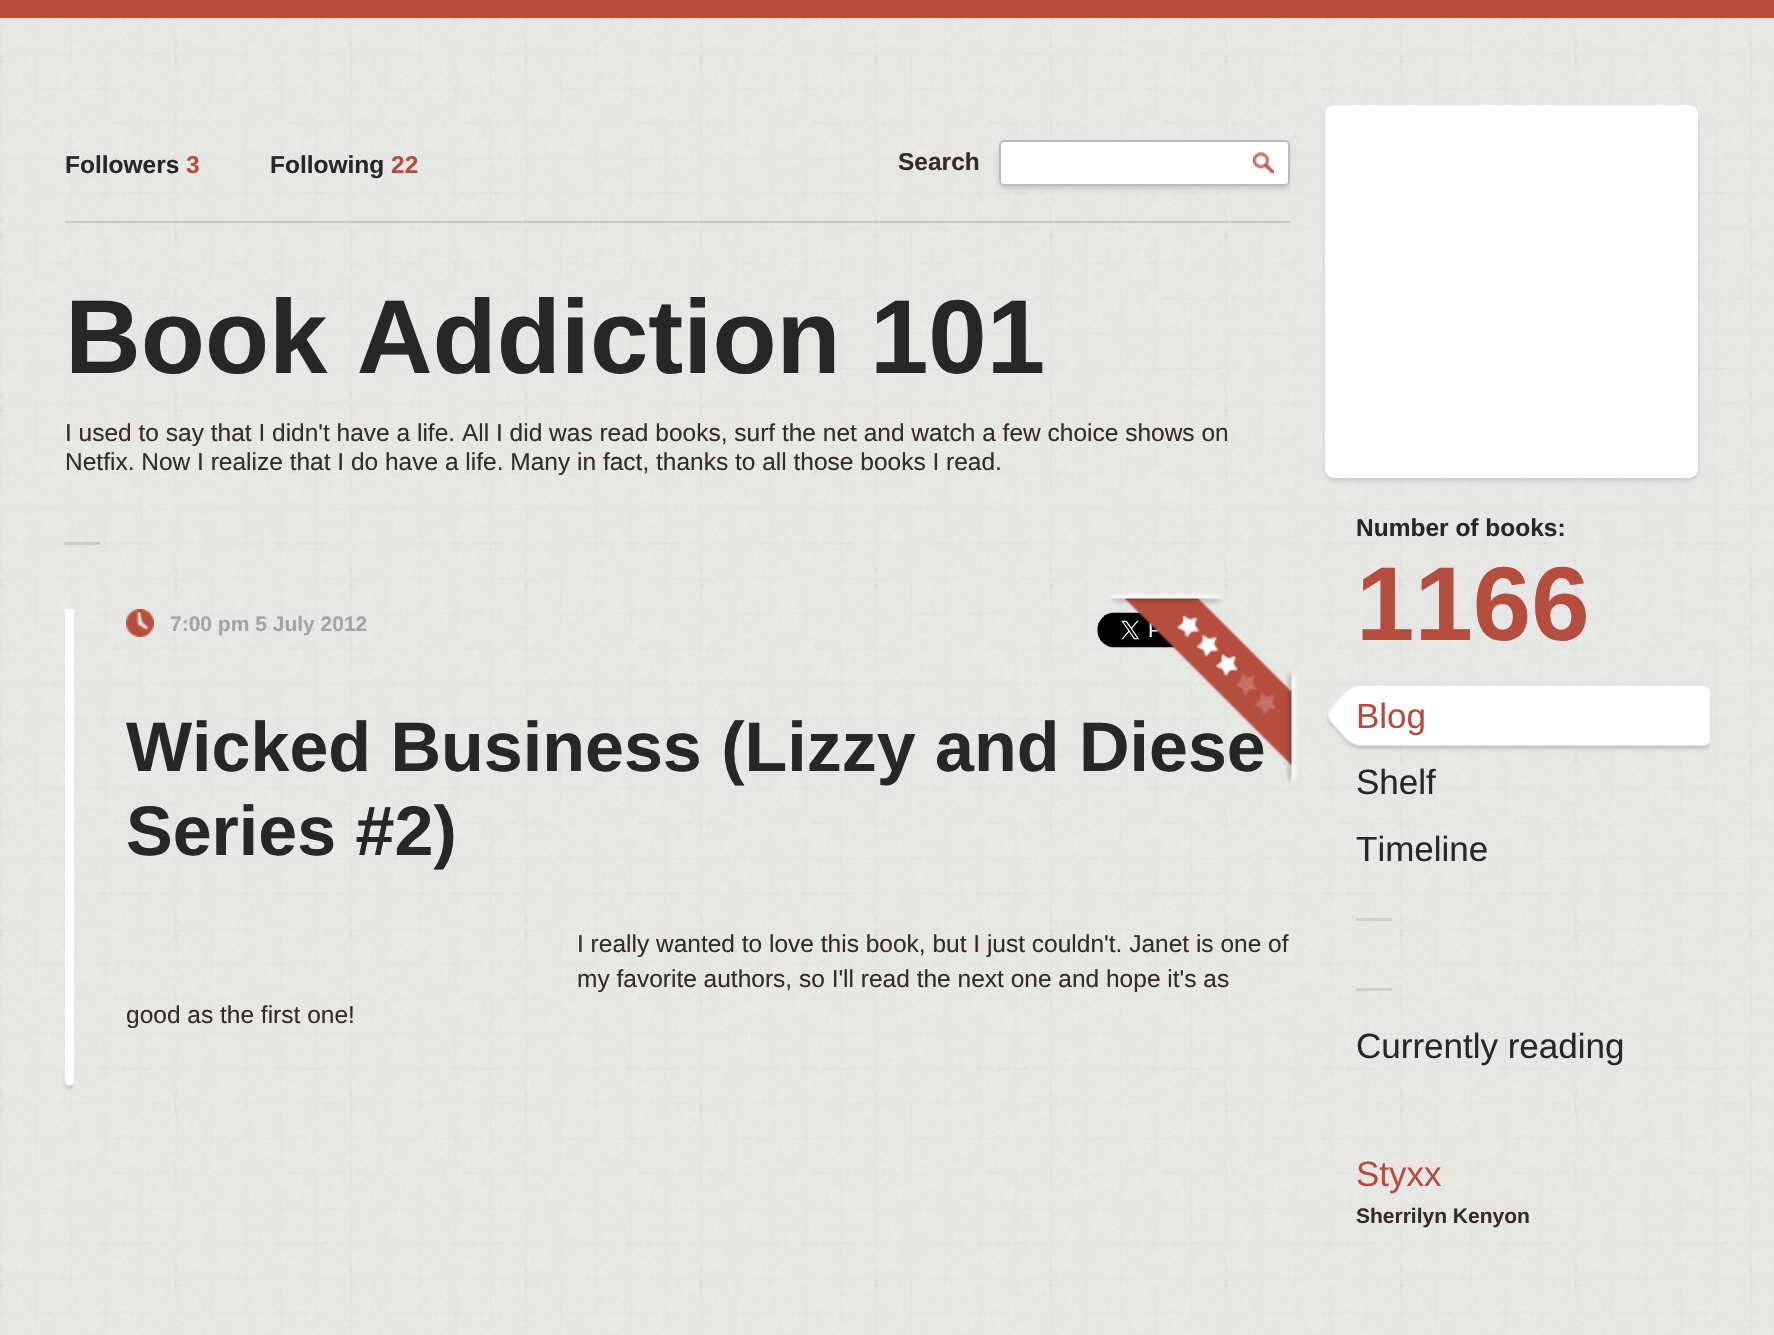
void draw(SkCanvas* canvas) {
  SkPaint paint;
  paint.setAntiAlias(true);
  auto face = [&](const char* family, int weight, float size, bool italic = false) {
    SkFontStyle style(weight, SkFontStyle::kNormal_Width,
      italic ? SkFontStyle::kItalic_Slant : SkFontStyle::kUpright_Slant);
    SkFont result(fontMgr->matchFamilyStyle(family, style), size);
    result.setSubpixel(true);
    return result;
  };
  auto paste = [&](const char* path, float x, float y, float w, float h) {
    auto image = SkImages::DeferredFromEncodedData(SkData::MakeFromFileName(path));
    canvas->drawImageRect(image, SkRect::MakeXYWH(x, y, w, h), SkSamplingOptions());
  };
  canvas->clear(0xffffffff);
  paste("img/1.png", 0, 18, 1774, 1317);
  paint.setColor(0xffb54e3f);
  canvas->drawRect(SkRect::MakeXYWH(0, 0, 1774, 18), paint);
  paint.setColor(0xffc7c7c5);
  canvas->drawRect(SkRect::MakeXYWH(65, 221, 1225, 2), paint);
  paint.setColor(0xffcccccc);
  paint.setMaskFilter(SkMaskFilter::MakeBlur(kNormal_SkBlurStyle, 2));
  canvas->drawRoundRect(SkRect::MakeXYWH(999, 144, 291, 45), 5, 5, paint);
  paint.setMaskFilter(nullptr);
  paint.setColor(0xffffffff);
  canvas->drawRoundRect(SkRect::MakeXYWH(999, 140, 291, 46), 5, 5, paint);
  paste("img/2.png", 1253, 152, 21, 22);
  paint.setStroke(true);
  paint.setStrokeWidth(2);
  paint.setColor(0xffbbbbb9);
  canvas->drawRoundRect(SkRect::MakeXYWH(1000, 141, 289, 44), 4, 4, paint);
  paint.setStroke(false);
  paint.setColor(0x24322a23);
  canvas->drawRect(SkRect::MakeXYWH(64, 542, 36, 3), paint);
  paint.setColor(0xffffffff);
  canvas->drawRect(SkRect::MakeXYWH(65, 609, 9, 476), paint);
  paste("img/3.png", 126, 609, 28, 28);
  paste("img/4.png", 1097, 612, 80, 36);
  paste("img/6.png", 63, 1074, 12, 16);
  paint.setColor(0xffcccccc);
  paint.setMaskFilter(SkMaskFilter::MakeBlur(kNormal_SkBlurStyle, 2));
  canvas->drawRoundRect(SkRect::MakeXYWH(1325, 109, 373, 372), 9, 9, paint);
  paint.setMaskFilter(nullptr);
  paint.setColor(0xffffffff);
  canvas->drawRoundRect(SkRect::MakeXYWH(1325, 105, 373, 373), 9, 9, paint);
  paste("img/7.png", 1327, 686, 383, 65);
  paint.setColor(0x21342d25);
  canvas->drawRect(SkRect::MakeXYWH(1356, 918, 36, 3), paint);
  canvas->drawRect(SkRect::MakeXYWH(1356, 988, 36, 3), paint);
  auto f0 = face("Liberation Sans", 700, 24.5f);
  paint.setColor(0xff272727);
  canvas->drawString("Followers", 65, 173, f0, paint);
  paint.setColor(0xffb64e3f);
  canvas->drawString("3", 186, 173, f0, paint);
  paint.setColor(0xff272727);
  canvas->drawString("Following", 270, 173, f0, paint);
  paint.setColor(0xffb64e3f);
  canvas->drawString("22", 391, 173, f0, paint);
  paint.setColor(0xff362b2a);
  canvas->drawString("Search", 898, 170, f0, paint);
  auto f1 = face("Liberation Sans", 700, 105);
  paint.setColor(0xff272727);
  canvas->drawString("Book Addiction 101", 65, 373, f1, paint);
  auto f2 = face("Liberation Sans", 400, 24.5f);
  paint.setColor(0xff362b2a);
  canvas->drawString("I used to say that I didn't have a life. All I did was read books, surf the net and watch a few choice shows on", 65, 441, f2, paint);
  canvas->drawString("Netfix. Now I realize that I do have a life. Many in fact, thanks to all those books I read.", 65, 470, f2, paint);
  auto f3 = face("Liberation Sans", 700, 21);
  paint.setColor(0xffa4a4a4);
  canvas->drawString("7:00 pm 5 July 2012", 170, 631, f3, paint);
  auto f4 = face("Liberation Sans", 700, 70);
  paint.setColor(0xff272727);
  canvas->drawString("Wicked Business (Lizzy and Diese", 126, 771, f4, paint);
  paste("img/5.png", 1110, 593, 188, 190);
  canvas->drawString("Series #2)", 126, 855, f4, paint);
  paint.setColor(0xff362b2a);
  {
    const struct { const char* s; float x, y; } items[] = {
      {"I really wanted to love this book, but I just couldn't. Janet is one of", 577, 952},
      {"my favorite authors, so I'll read the next one and hope it's as", 577, 987},
      {"good as the first one!", 126, 1023},
    };
    for (auto [s, x, y] : items) {
      canvas->drawString(s, x, y, f2, paint);
    }
  }
  paint.setColor(0xff272727);
  canvas->drawString("Number of books:", 1356, 536, f0, paint);
  paint.setColor(0xffb64e3f);
  canvas->drawString("1166", 1356, 640, f1, paint);
  auto f5 = face("Liberation Sans", 400, 35);
  canvas->drawString("Blog", 1356, 728, f5, paint);
  paint.setColor(0xff272727);
  {
    const struct { const char* s; float x, y; } items[] = {
      {"Shelf", 1356, 794},
      {"Timeline", 1356, 861},
      {"Currently reading", 1356, 1058},
    };
    for (auto [s, x, y] : items) {
      canvas->drawString(s, x, y, f5, paint);
    }
  }
  paint.setColor(0xffb64e3f);
  canvas->drawString("Styxx", 1356, 1186, f5, paint);
  paint.setColor(0xff362b2a);
  canvas->drawString("Sherrilyn Kenyon", 1356, 1223, f3, paint);
}
